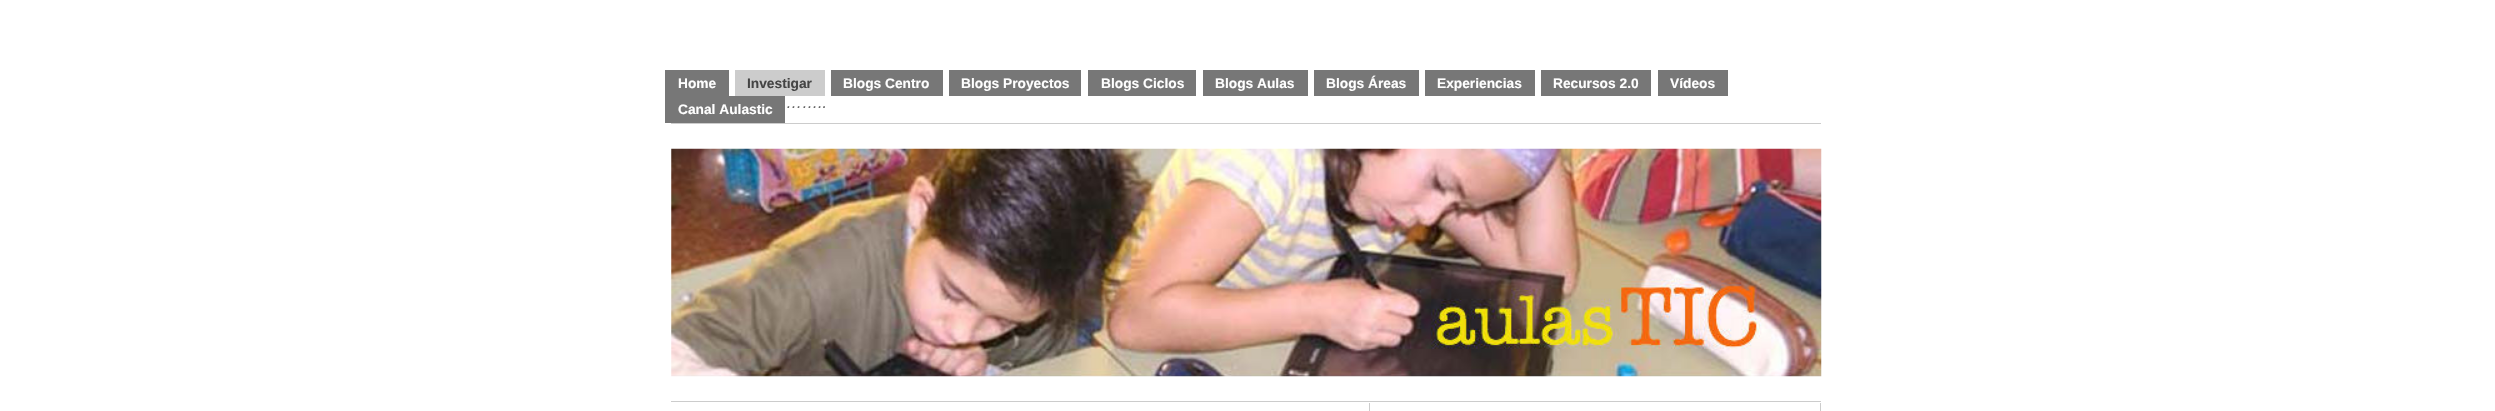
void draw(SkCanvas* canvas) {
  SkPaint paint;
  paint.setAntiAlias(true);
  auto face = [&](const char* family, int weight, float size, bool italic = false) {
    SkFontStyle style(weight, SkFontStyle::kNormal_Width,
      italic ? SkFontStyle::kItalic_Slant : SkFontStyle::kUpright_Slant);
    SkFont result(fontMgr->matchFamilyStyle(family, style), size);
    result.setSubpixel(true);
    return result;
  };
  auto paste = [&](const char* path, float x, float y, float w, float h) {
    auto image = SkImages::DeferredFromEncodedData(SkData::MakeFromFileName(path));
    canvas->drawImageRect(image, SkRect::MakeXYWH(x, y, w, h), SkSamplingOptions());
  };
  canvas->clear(0xffffffff);
  {
    const struct { float x, y, w, h; SkColor color; } items[] = {
      {665, 70, 64, 26, 0xff777777},
      {735, 70, 90, 26, 0xffcccccc},
      {831, 70, 112, 26, 0xff777777},
      {949, 70, 132, 26, 0xff777777},
      {1088, 70, 108, 26, 0xff777777},
      {1203, 70, 105, 26, 0xff777777},
      {1314, 70, 105, 26, 0xff777777},
      {1425, 70, 110, 26, 0xff777777},
      {1541, 70, 110, 26, 0xff777777},
      {1658, 70, 70, 26, 0xff777777},
      {665, 96, 120, 27, 0xff777777},
      {671, 123, 1150, 1, 0xffcccccc},
      {671, 401, 1150, 1, 0xffcccccc},
    };
    for (auto [x, y, w, h, color] : items) {
      paint.setColor(color);
      canvas->drawRect(SkRect::MakeXYWH(x, y, w, h), paint);
    }
  }
  paste("img/1.png", 671, 148, 1151, 229);
  canvas->drawRect(SkRect::MakeXYWH(1820, 403, 1, 8), paint);
  canvas->drawRect(SkRect::MakeXYWH(1369, 403, 1, 8), paint);
  auto f0 = face("Liberation Sans", 700, 13.75f);
  paint.setColor(0xffffffff);
  canvas->drawString("Home", 678, 88, f0, paint);
  paint.setColor(0xff444444);
  canvas->drawString("Investigar", 747, 88, f0, paint);
  paint.setColor(0xffffffff);
  {
    const struct { const char* s; float x, y; } items[] = {
      {"Blogs Centro", 843, 88},
      {"Blogs Proyectos", 961, 88},
      {"Blogs Ciclos", 1101, 88},
      {"Blogs Aulas", 1215, 88},
      {"Blogs Áreas", 1326, 88},
      {"Experiencias", 1437, 88},
      {"Recursos 2.0", 1553, 88},
      {"Vídeos", 1670, 88},
      {"Canal Aulastic", 678, 114},
    };
    for (auto [s, x, y] : items) {
      canvas->drawString(s, x, y, f0, paint);
    }
  }
  auto f1 = face("Liberation Sans", 400, 16, true);
  paint.setColor(0xff666666);
  canvas->drawString("……..", 786, 108, f1, paint);
}
